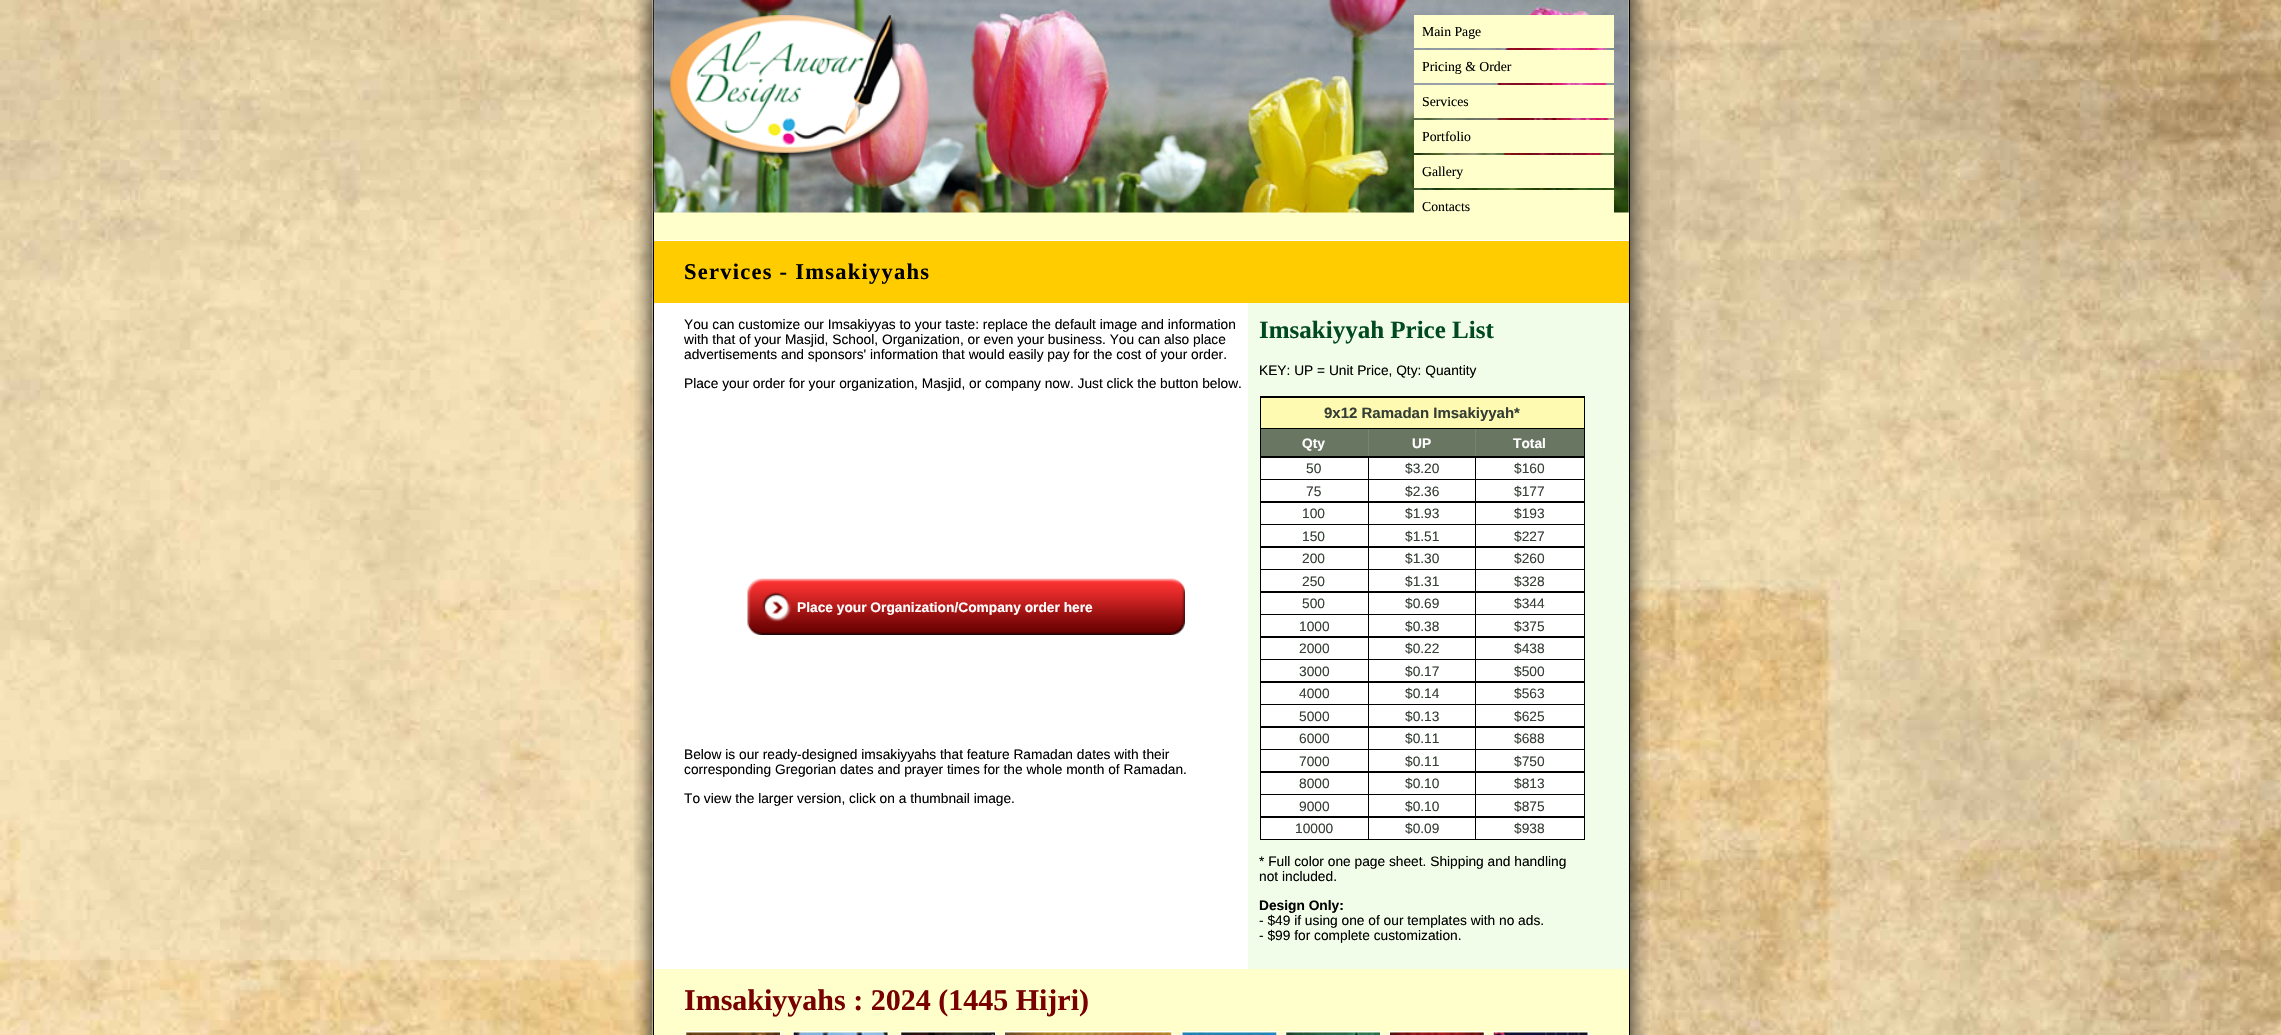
void draw(SkCanvas* canvas) {
  SkPaint paint;
  paint.setAntiAlias(true);
  auto face = [&](const char* family, int weight, float size, bool italic = false) {
    SkFontStyle style(weight, SkFontStyle::kNormal_Width,
      italic ? SkFontStyle::kItalic_Slant : SkFontStyle::kUpright_Slant);
    SkFont result(fontMgr->matchFamilyStyle(family, style), size);
    result.setSubpixel(true);
    return result;
  };
  auto writeSpaced = [&](const char* s, float x, float y, const SkFont& font, const SkPaint& ink, float letter, float word) {
    std::vector<SkGlyphID> glyphs(font.countText(s, strlen(s), SkTextEncoding::kUTF8));
    std::vector<float> xs(glyphs.size());
    font.textToGlyphs(s, strlen(s), SkTextEncoding::kUTF8, glyphs);
    font.getXPos(glyphs, xs, x);
    float extra = 0;
    for (size_t i = 0; i < glyphs.size(); i++) {
      xs[i] += extra;
      extra += letter + word * (glyphs[i] == font.unicharToGlyph(' '));
    }
    canvas->drawTextBlob(SkTextBlob::MakeFromPosHGlyphs(glyphs, xs, y, font), 0, 0, ink);
  };
  auto paste = [&](const char* path, float x, float y, float w, float h) {
    auto image = SkImages::DeferredFromEncodedData(SkData::MakeFromFileName(path));
    canvas->drawImageRect(image, SkRect::MakeXYWH(x, y, w, h), SkSamplingOptions());
  };
  canvas->clear(0xffffffff);
  paste("img/1.png", 0, 0, 2281, 1035);
  paste("img/2.png", 634, 0, 19, 1035);
  paint.setColor(0xffffffcc);
  canvas->drawRect(SkRect::MakeXYWH(654, 0, 975, 1035), paint);
  paint.setColor(0xff000000);
  canvas->drawRect(SkRect::MakeXYWH(653, 0, 1, 1035), paint);
  paste("img/3.png", 653, 0, 976, 213);
  paste("img/4.png", 669, 15, 237, 145);
  {
    const struct { float x, y, w, h; SkColor color; } items[] = {
      {1414, 15, 200, 33, 0xffffffcc},
      {1414, 50, 200, 33, 0xffffffcc},
      {1414, 85, 200, 33, 0xffffffcc},
      {1414, 120, 200, 33, 0xffffffcc},
      {1414, 155, 200, 33, 0xffffffcc},
      {1414, 190, 200, 23, 0xffffffcc},
      {1629, 0, 1, 1035, 0xff000000},
      {654, 240, 975, 1, 0xffffffff},
      {654, 241, 975, 62, 0xffffcc00},
      {654, 303, 594, 666, 0xffffffff},
      {1248, 303, 381, 666, 0xfff1fde9},
      {1260, 396, 325, 444, 0xff000000},
      {1261, 398, 323, 30, 0xfffefab1},
      {1368, 429, 108, 27, 0xff77856d},
      {1261, 429, 107, 27, 0xff697661},
      {1369, 429, 106, 27, 0xff697661},
      {1476, 429, 108, 27, 0xff697661},
      {1261, 458, 107, 21, 0xffffffff},
      {1369, 458, 106, 21, 0xffffffff},
      {1476, 458, 108, 21, 0xffffffff},
      {1261, 480, 107, 21, 0xffffffff},
      {1369, 480, 106, 21, 0xffffffff},
      {1476, 480, 108, 21, 0xffffffff},
      {1261, 503, 107, 21, 0xffffffff},
      {1369, 503, 106, 21, 0xffffffff},
      {1476, 503, 108, 21, 0xffffffff},
      {1261, 525, 107, 21, 0xffffffff},
      {1369, 525, 106, 21, 0xffffffff},
      {1476, 525, 108, 21, 0xffffffff},
      {1261, 548, 107, 21, 0xffffffff},
      {1369, 548, 106, 21, 0xffffffff},
      {1476, 548, 108, 21, 0xffffffff},
      {1261, 570, 107, 21, 0xffffffff},
      {1369, 570, 106, 21, 0xffffffff},
      {1476, 570, 108, 21, 0xffffffff},
      {1261, 593, 107, 21, 0xffffffff},
      {1369, 593, 106, 21, 0xffffffff},
      {1476, 593, 108, 21, 0xffffffff},
      {1261, 615, 107, 21, 0xffffffff},
      {1369, 615, 106, 21, 0xffffffff},
      {1476, 615, 108, 21, 0xffffffff},
      {1261, 638, 107, 21, 0xffffffff},
      {1369, 638, 106, 21, 0xffffffff},
      {1476, 638, 108, 21, 0xffffffff},
      {1261, 660, 107, 21, 0xffffffff},
      {1369, 660, 106, 21, 0xffffffff},
      {1476, 660, 108, 21, 0xffffffff},
      {1261, 683, 107, 21, 0xffffffff},
      {1369, 683, 106, 21, 0xffffffff},
      {1476, 683, 108, 21, 0xffffffff},
      {1261, 705, 107, 21, 0xffffffff},
      {1369, 705, 106, 21, 0xffffffff},
      {1476, 705, 108, 21, 0xffffffff},
      {1261, 728, 107, 21, 0xffffffff},
      {1369, 728, 106, 21, 0xffffffff},
      {1476, 728, 108, 21, 0xffffffff},
      {1261, 750, 107, 21, 0xffffffff},
      {1369, 750, 106, 21, 0xffffffff},
      {1476, 750, 108, 21, 0xffffffff},
      {1261, 773, 107, 21, 0xffffffff},
      {1369, 773, 106, 21, 0xffffffff},
      {1476, 773, 108, 21, 0xffffffff},
      {1261, 795, 107, 21, 0xffffffff},
      {1369, 795, 106, 21, 0xffffffff},
      {1476, 795, 108, 21, 0xffffffff},
      {1261, 818, 107, 21, 0xffffffff},
      {1369, 818, 106, 21, 0xffffffff},
      {1476, 818, 108, 21, 0xffffffff},
    };
    for (auto [x, y, w, h, color] : items) {
      paint.setColor(color);
      canvas->drawRect(SkRect::MakeXYWH(x, y, w, h), paint);
    }
  }
  paste("img/5.png", 747, 578, 438, 57);
  paint.setStroke(true);
  paint.setStrokeWidth(1);
  canvas->drawRect(SkRect::MakeXYWH(685.5f, 1031.5f, 95, 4), paint);
  canvas->drawRect(SkRect::MakeXYWH(793.5f, 1031.5f, 95, 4), paint);
  canvas->drawRect(SkRect::MakeXYWH(900.5f, 1031.5f, 95, 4), paint);
  canvas->drawRect(SkRect::MakeXYWH(1004.5f, 1031.5f, 168, 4), paint);
  canvas->drawRect(SkRect::MakeXYWH(1181.5f, 1031.5f, 96, 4), paint);
  canvas->drawRect(SkRect::MakeXYWH(1285.5f, 1031.5f, 95, 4), paint);
  canvas->drawRect(SkRect::MakeXYWH(1389.5f, 1031.5f, 95, 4), paint);
  canvas->drawRect(SkRect::MakeXYWH(1493.5f, 1031.5f, 95, 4), paint);
  paste("img/6.png", 686, 1032, 94, 3);
  paste("img/7.png", 793, 1032, 95, 3);
  paste("img/8.png", 901, 1032, 94, 3);
  paste("img/9.png", 1005, 1032, 167, 3);
  paste("img/10.png", 1182, 1032, 95, 3);
  paste("img/11.png", 1286, 1032, 94, 3);
  paste("img/12.png", 1390, 1032, 94, 3);
  paste("img/13.png", 1493, 1032, 95, 3);
  paste("img/14.png", 1630, 0, 19, 1035);
  auto f0 = face("Liberation Serif", 400, 13.75f);
  paint.setStroke(false);
  paint.setColor(0xff000000);
  {
    const struct { const char* s; float x, y; } items[] = {
      {"Main Page", 1422, 36},
      {"Pricing & Order", 1422, 71},
      {"Services", 1422, 106},
      {"Portfolio", 1422, 141},
      {"Gallery", 1422, 176},
      {"Contacts", 1422, 211},
    };
    for (auto [s, x, y] : items) {
      canvas->drawString(s, x, y, f0, paint);
    }
  }
  auto f1 = face("Liberation Serif", 700, 22.5f);
  writeSpaced("Services - Imsakiyyahs", 684, 279, f1, paint, 1.25f, 0);
  auto f2 = face("Liberation Sans", 400, 13.75f);
  {
    const struct { const char* s; float x, y; } items[] = {
      {"You can customize our Imsakiyyas to your taste: replace the default image and information", 684, 329},
      {"with that of your Masjid, School, Organization, or even your business. You can also place", 684, 344},
      {"advertisements and sponsors' information that would easily pay for the cost of your order.", 684, 359},
      {"Place your order for your organization, Masjid, or company now. Just click the button below.", 684, 388},
    };
    for (auto [s, x, y] : items) {
      canvas->drawString(s, x, y, f2, paint);
    }
  }
  auto f3 = face("Liberation Serif", 700, 25);
  paint.setColor(0xff014a1f);
  canvas->drawString("Imsakiyyah Price List", 1259, 338, f3, paint);
  paint.setColor(0xff000000);
  canvas->drawString("KEY: UP = Unit Price, Qty: Quantity", 1259, 375, f2, paint);
  auto f4 = face("Liberation Sans", 700, 15);
  paint.setColor(0xff353e35);
  canvas->drawString("9x12 Ramadan Imsakiyyah*", 1324, 418, f4, paint);
  auto f5 = face("Liberation Sans", 700, 13.75f);
  paint.setColor(0xffffffff);
  {
    const struct { const char* s; float x, y; } items[] = {
      {"Qty", 1302, 448},
      {"UP", 1412, 448},
      {"Total", 1513, 448},
    };
    for (auto [s, x, y] : items) {
      canvas->drawString(s, x, y, f5, paint);
    }
  }
  paint.setColor(0xff353e35);
  {
    const struct { const char* s; float x, y; } items[] = {
      {"50", 1306, 473},
      {"$3.20", 1405, 473},
      {"$160", 1514, 473},
      {"75", 1306, 496},
      {"$2.36", 1405, 496},
      {"$177", 1514, 496},
      {"100", 1302, 518},
      {"$1.93", 1405, 518},
      {"$193", 1514, 518},
      {"150", 1302, 541},
      {"$1.51", 1405, 541},
      {"$227", 1514, 541},
      {"200", 1302, 563},
      {"$1.30", 1405, 563},
      {"$260", 1514, 563},
      {"250", 1302, 586},
      {"$1.31", 1405, 586},
      {"$328", 1514, 586},
      {"500", 1302, 608},
      {"$0.69", 1405, 608},
      {"$344", 1514, 608},
      {"1000", 1299, 631},
      {"$0.38", 1405, 631},
      {"$375", 1514, 631},
      {"2000", 1299, 653},
      {"$0.22", 1405, 653},
      {"$438", 1514, 653},
      {"3000", 1299, 676},
      {"$0.17", 1405, 676},
      {"$500", 1514, 676},
      {"4000", 1299, 698},
      {"$0.14", 1405, 698},
      {"$563", 1514, 698},
      {"5000", 1299, 721},
      {"$0.13", 1405, 721},
      {"$625", 1514, 721},
      {"6000", 1299, 743},
      {"$0.11", 1405, 743},
      {"$688", 1514, 743},
      {"7000", 1299, 766},
      {"$0.11", 1405, 766},
      {"$750", 1514, 766},
      {"8000", 1299, 788},
      {"$0.10", 1405, 788},
      {"$813", 1514, 788},
      {"9000", 1299, 811},
      {"$0.10", 1405, 811},
      {"$875", 1514, 811},
      {"10000", 1295, 833},
      {"$0.09", 1405, 833},
      {"$938", 1514, 833},
    };
    for (auto [s, x, y] : items) {
      canvas->drawString(s, x, y, f2, paint);
    }
  }
  paint.setColor(0xff000000);
  canvas->drawString("* Full color one page sheet. Shipping and handling", 1259, 866, f2, paint);
  canvas->drawString("not included.", 1259, 881, f2, paint);
  canvas->drawString("Design Only:", 1259, 910, f5, paint);
  canvas->drawString("- $49 if using one of our templates with no ads.", 1259, 925, f2, paint);
  canvas->drawString("- $99 for complete customization.", 1259, 940, f2, paint);
  paint.setColor(0xffffffff);
  canvas->drawString("Place your Organization/Company order here", 797, 612, f5, paint);
  paint.setColor(0xff000000);
  {
    const struct { const char* s; float x, y; } items[] = {
      {"Below is our ready-designed imsakiyyahs that feature Ramadan dates with their", 684, 759},
      {"corresponding Gregorian dates and prayer times for the whole month of Ramadan.", 684, 774},
      {"To view the larger version, click on a thumbnail image.", 684, 803},
    };
    for (auto [s, x, y] : items) {
      canvas->drawString(s, x, y, f2, paint);
    }
  }
  auto f6 = face("Liberation Serif", 700, 30);
  paint.setColor(0xff790000);
  canvas->drawString("Imsakiyyahs : 2024 (1445 Hijri)", 684, 1010, f6, paint);
}
